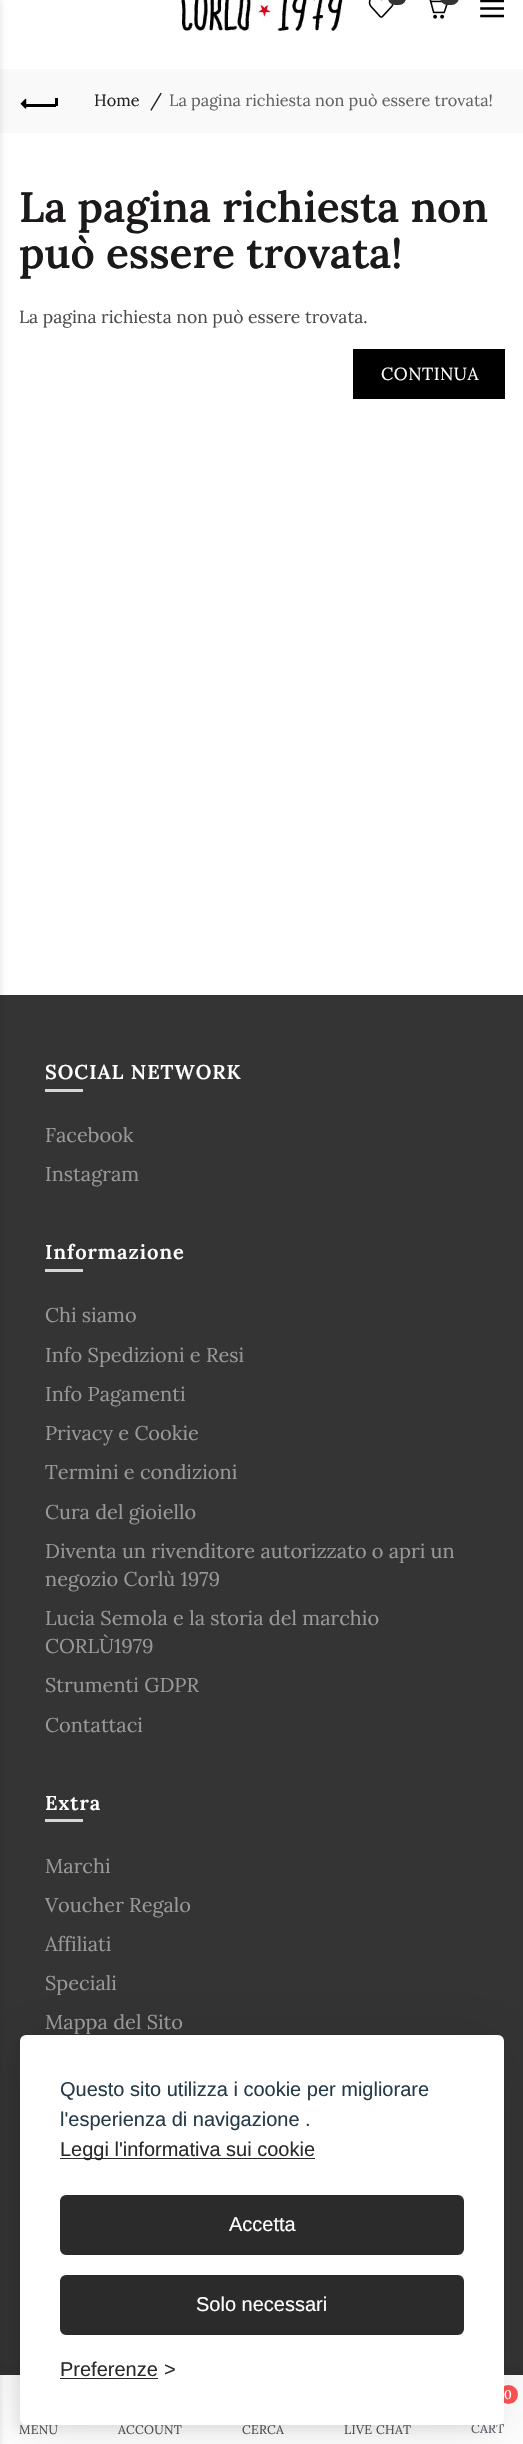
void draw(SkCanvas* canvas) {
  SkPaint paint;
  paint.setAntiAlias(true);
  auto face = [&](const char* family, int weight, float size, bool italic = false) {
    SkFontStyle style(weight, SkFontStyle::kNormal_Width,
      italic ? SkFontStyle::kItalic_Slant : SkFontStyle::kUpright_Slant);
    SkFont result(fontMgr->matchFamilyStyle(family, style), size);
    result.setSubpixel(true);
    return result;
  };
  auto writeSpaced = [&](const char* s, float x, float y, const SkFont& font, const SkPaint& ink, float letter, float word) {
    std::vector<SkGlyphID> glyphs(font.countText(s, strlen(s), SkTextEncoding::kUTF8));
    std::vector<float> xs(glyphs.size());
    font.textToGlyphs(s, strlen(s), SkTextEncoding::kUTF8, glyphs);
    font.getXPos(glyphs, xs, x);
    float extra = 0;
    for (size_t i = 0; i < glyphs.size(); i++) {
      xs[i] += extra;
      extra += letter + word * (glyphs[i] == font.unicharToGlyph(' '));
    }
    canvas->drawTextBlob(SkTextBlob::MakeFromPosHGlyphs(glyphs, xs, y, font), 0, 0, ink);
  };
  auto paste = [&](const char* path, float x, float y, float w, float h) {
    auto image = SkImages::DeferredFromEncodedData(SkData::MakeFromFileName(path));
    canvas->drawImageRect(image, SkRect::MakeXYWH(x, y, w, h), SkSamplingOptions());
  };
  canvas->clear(0xffffffff);
  paint.setColor(0xfff9f9f9);
  canvas->drawRect(SkRect::MakeXYWH(0, 69, 523, 64), paint);
  paint.setColor(0xff343434);
  canvas->drawRect(SkRect::MakeXYWH(0, 995, 523, 1380), paint);
  paint.setColor(0x1a000000);
  paint.setMaskFilter(SkMaskFilter::MakeBlur(kNormal_SkBlurStyle, 6));
  canvas->drawRect(SkRect::MakeXYWH(1, 2371, 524, 70), paint);
  paint.setMaskFilter(nullptr);
  paint.setColor(0xffffffff);
  canvas->drawRect(SkRect::MakeXYWH(0, 2375, 523, 69), paint);
  paint.setColor(0x21000000);
  paint.setMaskFilter(SkMaskFilter::MakeBlur(kNormal_SkBlurStyle, 3));
  canvas->drawRect(SkRect::MakeXYWH(-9, 1, 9, 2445), paint);
  paint.setMaskFilter(nullptr);
  paint.setColor(0xff000000);
  canvas->drawRect(SkRect::MakeXYWH(25, 104, 31, 3), paint);
  paste("img/1.png", 20, 98, 7, 11);
  {
    const struct { float x, y, w, h; SkColor color; } items[] = {
      {55, 98, 3, 8, 0xff000000},
      {353, 349, 152, 50, 0xff000000},
      {45, 1089, 38, 3, 0xffd6d6d6},
      {45, 1269, 38, 3, 0xffd6d6d6},
      {45, 1819, 38, 3, 0xffd6d6d6},
    };
    for (auto [x, y, w, h, color] : items) {
      paint.setColor(color);
      canvas->drawRect(SkRect::MakeXYWH(x, y, w, h), paint);
    }
  }
  paste("img/2.png", 181, 0, 162, 31);
  paste("img/3.png", 368, 0, 26, 18);
  paint.setColor(0xff343434);
  canvas->drawRoundRect(SkRect::MakeXYWH(388, -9, 18, 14), 9, 9, paint);
  paste("img/4.png", 429, 0, 19, 19);
  canvas->drawRoundRect(SkRect::MakeXYWH(440, -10, 19, 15), 9.5f, 9.5f, paint);
  paste("img/5.png", 480, 0, 24, 18);
  paint.setColor(0xffff5353);
  canvas->drawCircle(508.5f, 2394.5f, 9.5f, paint);
  paint.setColor(0x1a000000);
  paint.setMaskFilter(SkMaskFilter::MakeBlur(kNormal_SkBlurStyle, 31));
  canvas->drawRoundRect(SkRect::MakeXYWH(20, 2035, 484, 390), 6, 6, paint);
  paint.setMaskFilter(nullptr);
  paint.setColor(0x12000000);
  paint.setMaskFilter(SkMaskFilter::MakeBlur(kNormal_SkBlurStyle, 6));
  canvas->drawRoundRect(SkRect::MakeXYWH(14, 2041, 484, 390), 6, 6, paint);
  paint.setMaskFilter(nullptr);
  auto f0 = face("Lora", 400, 16.25f);
  paint.setColor(0xff222222);
  canvas->drawString("Home", 94, 106, f0, paint);
  auto f1 = face("Lora", 400, 17.5f);
  canvas->drawString("/", 150, 106, f1, paint);
  paint.setColor(0xff636363);
  canvas->drawString("La pagina richiesta non può essere trovata!", 169, 106, f0, paint);
  auto f2 = face("Lora", 600, 42.5f);
  paint.setColor(0xff1b1919);
  canvas->drawString("La pagina richiesta non", 19, 222, f2, paint);
  canvas->drawString("può essere trovata!", 19, 268, f2, paint);
  paint.setColor(0xff4c4c4c);
  canvas->drawString("La pagina richiesta non può essere trovata.", 19, 323, f1, paint);
  paint.setColor(0xffffffff);
  writeSpaced("CONTINUA", 381, 380, f1, paint, 0.5f, 0);
  auto f3 = face("Lora", 600, 20);
  writeSpaced("SOCIAL NETWORK", 45, 1079, f3, paint, 1, 0);
  auto f4 = face("Lora", 400, 20);
  paint.setColor(0xff999999);
  canvas->drawString("Facebook", 45, 1142, f4, paint);
  canvas->drawString("Instagram", 45, 1181, f4, paint);
  paint.setColor(0xffffffff);
  writeSpaced("Informazione", 45, 1259, f3, paint, 1, 0);
  paint.setColor(0xff999999);
  {
    const struct { const char* s; float x, y; } items[] = {
      {"Chi siamo", 45, 1322},
      {"Info Spedizioni e Resi", 45, 1362},
      {"Info Pagamenti", 45, 1401},
      {"Privacy e Cookie", 45, 1440},
      {"Termini e condizioni", 45, 1479},
      {"Cura del gioiello", 45, 1519},
      {"Diventa un rivenditore autorizzato o apri un", 45, 1558},
      {"negozio Corlù 1979", 45, 1586},
      {"Lucia Semola e la storia del marchio", 45, 1625},
      {"CORLÙ1979", 45, 1653},
      {"Strumenti GDPR", 45, 1692},
      {"Contattaci", 45, 1732},
    };
    for (auto [s, x, y] : items) {
      canvas->drawString(s, x, y, f4, paint);
    }
  }
  paint.setColor(0xffffffff);
  writeSpaced("Extra", 45, 1810, f3, paint, 1, 0);
  paint.setColor(0xff999999);
  {
    const struct { const char* s; float x, y; } items[] = {
      {"Marchi", 45, 1873},
      {"Voucher Regalo", 45, 1912},
      {"Affiliati", 45, 1951},
      {"Speciali", 45, 1990},
      {"Mappa del Sito", 45, 2029},
    };
    for (auto [s, x, y] : items) {
      canvas->drawString(s, x, y, f4, paint);
    }
  }
  auto f5 = face("Lora", 400, 12.5f);
  paint.setColor(0xff4c4c4c);
  {
    const struct { const char* s; float x, y; } items[] = {
      {"MENU", 19, 2434},
      {"ACCOUNT", 118, 2434},
      {"CERCA", 242, 2434},
      {"LIVE CHAT", 344, 2434},
    };
    for (auto [s, x, y] : items) {
      writeSpaced(s, x, y, f5, paint, 0.25f, 0);
    }
  }
  paint.setColor(0xffffffff);
  canvas->drawString("0", 504, 2399, f5, paint);
  paint.setColor(0xff555565);
  writeSpaced("CART", 471, 2433, f5, paint, 0.25f, 0);
  paint.setColor(0xffffffff);
  canvas->drawRoundRect(SkRect::MakeXYWH(20, 2035, 484, 390), 6, 6, paint);
  auto f6 = face("Liberation Sans", 400, 20);
  paint.setColor(0xff253b48);
  canvas->drawString("Questo sito utilizza i cookie per migliorare", 60, 2096, f6, paint);
  canvas->drawString("l'esperienza di navigazione .", 60, 2126, f6, paint);
  paint.setColor(0xff2b2b2b);
  canvas->drawRect(SkRect::MakeXYWH(60, 2158, 255, 1), paint);
  canvas->drawString("Leggi l'informativa sui cookie", 60, 2156, f6, paint);
  canvas->drawRoundRect(SkRect::MakeXYWH(61.5f, 2196.5f, 401, 57), 4.5f, 4.5f, paint);
  paint.setStroke(true);
  paint.setStrokeWidth(3);
  canvas->drawRoundRect(SkRect::MakeXYWH(61.5f, 2196.5f, 401, 57), 4.5f, 4.5f, paint);
  paint.setStroke(false);
  paint.setColor(0xffffffff);
  canvas->drawString("Accetta", 229, 2231, f6, paint);
  paint.setColor(0xff2b2b2b);
  canvas->drawRoundRect(SkRect::MakeXYWH(61.5f, 2276.5f, 401, 57), 4.5f, 4.5f, paint);
  paint.setStroke(true);
  canvas->drawRoundRect(SkRect::MakeXYWH(61.5f, 2276.5f, 401, 57), 4.5f, 4.5f, paint);
  paint.setStroke(false);
  paint.setColor(0xffffffff);
  canvas->drawString("Solo necessari", 196, 2311, f6, paint);
  paint.setColor(0xff2b2b2b);
  canvas->drawString("Preferenze", 60, 2376, f6, paint);
  canvas->drawRect(SkRect::MakeXYWH(60, 2378, 98, 1), paint);
  canvas->drawString(">", 164, 2376, f6, paint);
}
